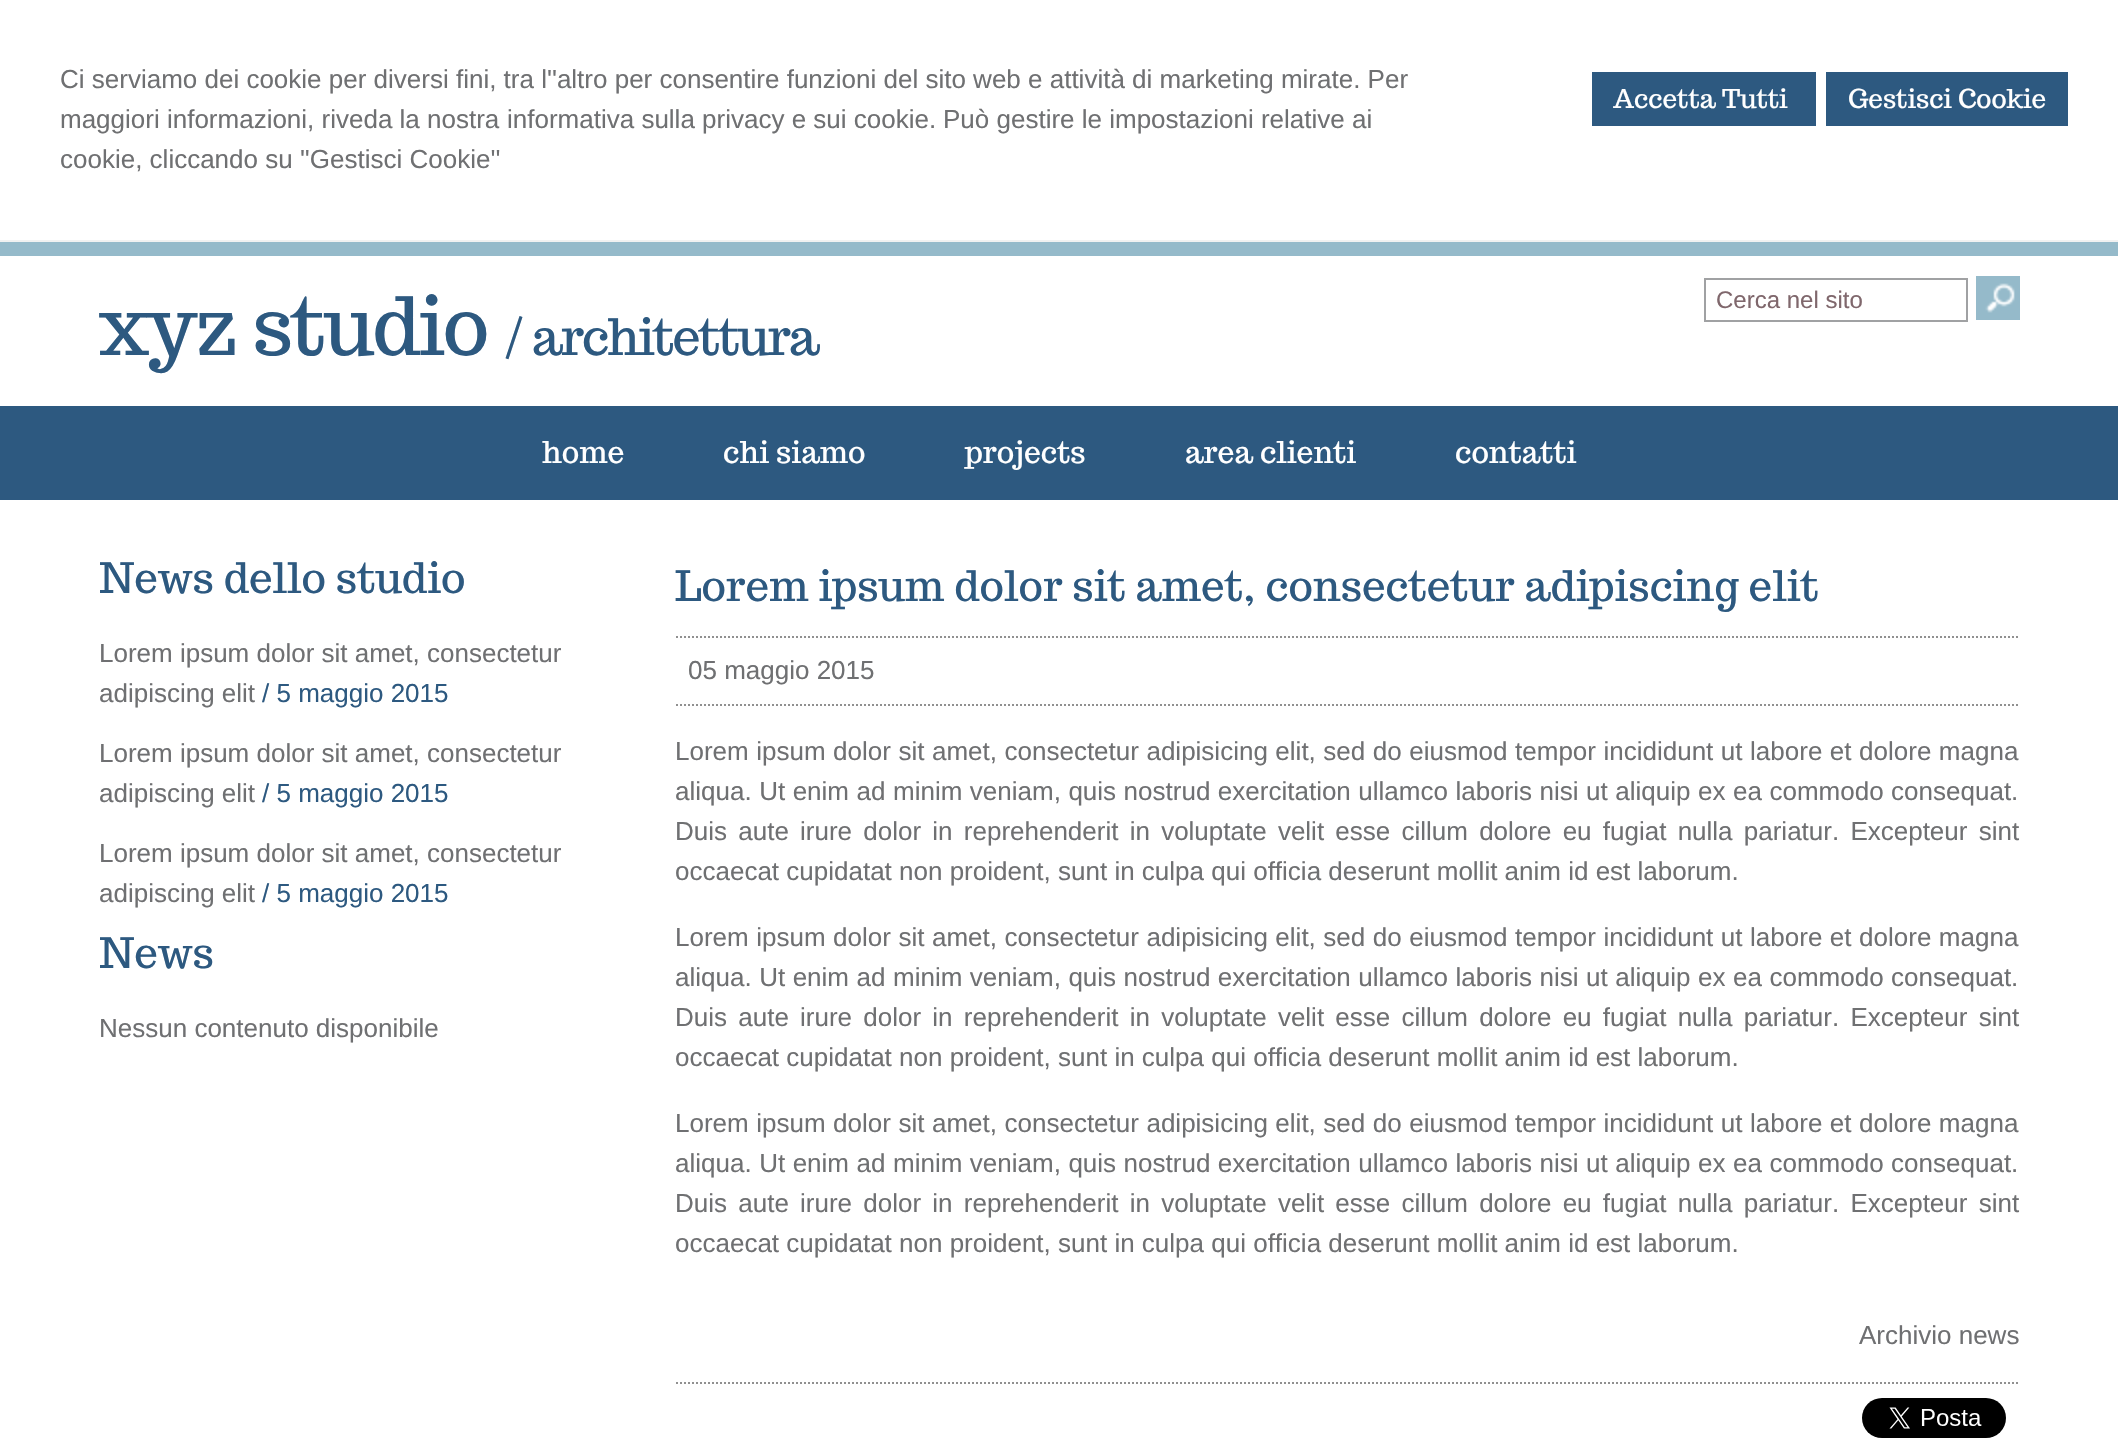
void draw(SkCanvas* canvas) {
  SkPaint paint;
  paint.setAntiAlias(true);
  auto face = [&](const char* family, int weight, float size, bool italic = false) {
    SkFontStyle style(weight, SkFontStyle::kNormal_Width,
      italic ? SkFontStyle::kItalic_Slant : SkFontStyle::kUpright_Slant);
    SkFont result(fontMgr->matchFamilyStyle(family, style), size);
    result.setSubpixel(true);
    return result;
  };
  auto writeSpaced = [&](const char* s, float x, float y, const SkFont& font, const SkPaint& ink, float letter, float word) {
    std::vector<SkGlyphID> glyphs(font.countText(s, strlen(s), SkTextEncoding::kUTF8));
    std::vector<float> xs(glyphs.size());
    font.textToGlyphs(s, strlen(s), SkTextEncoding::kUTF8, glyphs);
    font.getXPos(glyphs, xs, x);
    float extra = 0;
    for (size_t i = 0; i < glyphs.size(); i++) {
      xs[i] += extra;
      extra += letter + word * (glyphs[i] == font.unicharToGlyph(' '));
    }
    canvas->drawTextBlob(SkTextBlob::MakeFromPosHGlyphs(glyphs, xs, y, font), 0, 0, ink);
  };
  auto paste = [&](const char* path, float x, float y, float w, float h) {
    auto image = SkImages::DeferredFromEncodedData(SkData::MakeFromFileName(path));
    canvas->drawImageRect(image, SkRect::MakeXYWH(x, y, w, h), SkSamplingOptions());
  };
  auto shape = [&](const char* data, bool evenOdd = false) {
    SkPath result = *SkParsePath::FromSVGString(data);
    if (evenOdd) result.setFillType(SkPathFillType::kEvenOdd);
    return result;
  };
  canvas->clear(0xffffffff);
  {
    const struct { float x, y, w, h; SkColor color; } items[] = {
      {0, 240, 2118, 2, 0xfff1f1f1},
      {1592, 72, 224, 54, 0xff2d5980},
      {1826, 72, 242, 54, 0xff2d5980},
      {0, 242, 2118, 14, 0xff95baca},
    };
    for (auto [x, y, w, h, color] : items) {
      paint.setColor(color);
      canvas->drawRect(SkRect::MakeXYWH(x, y, w, h), paint);
    }
  }
  paint.setStroke(true);
  paint.setStrokeWidth(2);
  paint.setColor(0xffa0a1a3);
  canvas->drawRect(SkRect::MakeXYWH(1705, 279, 262, 42), paint);
  paint.setStroke(false);
  paint.setColor(0xff95baca);
  canvas->drawRect(SkRect::MakeXYWH(1976, 276, 44, 44), paint);
  paste("img/1.png", 1985, 283, 30, 30);
  paint.setColor(0xff2d5980);
  canvas->drawRect(SkRect::MakeXYWH(0, 406, 2118, 94), paint);
  paint.setStroke(true);
  paint.setColor(0xff909090);
  paint.setPathEffect(SkDashPathEffect::Make({{2, 2}}, 0));
  canvas->drawPath(shape("M676 637H2020"), paint);
  paint.setPathEffect(nullptr);
  paint.setPathEffect(SkDashPathEffect::Make({{2, 2}}, 0));
  canvas->drawPath(shape("M676 705H2020"), paint);
  paint.setPathEffect(nullptr);
  paint.setPathEffect(SkDashPathEffect::Make({{2, 2}}, 0));
  canvas->drawPath(shape("M676 1383H2020"), paint);
  paint.setPathEffect(nullptr);
  paste("img/2.png", 1862, 1398, 144, 40);
  auto f0 = face("Liberation Sans", 400, 26);
  paint.setStroke(false);
  paint.setColor(0xff6f7072);
  {
    const struct { const char* s; float x, y; } items[] = {
      {"Ci serviamo dei cookie per diversi fini, tra l''altro per consentire funzioni del sito web e attività di marketing mirate. Per", 60, 88},
      {"maggiori informazioni, riveda la nostra", 60, 128},
      {"informativa sulla privacy e sui cookie.", 507, 128},
      {"Può gestire le impostazioni relative ai", 943, 128},
      {"cookie, cliccando su ''Gestisci Cookie''", 60, 168},
    };
    for (auto [s, x, y] : items) {
      canvas->drawString(s, x, y, f0, paint);
    }
  }
  auto f1 = face("Trocchi", 400, 26);
  paint.setColor(0xffffffff);
  canvas->drawString("Accetta Tutti", 1613, 108, f1, paint);
  canvas->drawString("Gestisci Cookie", 1848, 108, f1, paint);
  auto f2 = face("Trocchi", 400, 80);
  paint.setColor(0xff2d5980);
  writeSpaced("xyz studio", 99, 355, f2, paint, -2, 0);
  auto f3 = face("Trocchi", 400, 50);
  writeSpaced("/ architettura", 504, 355, f3, paint, -2, 0);
  auto f4 = face("Liberation Sans", 400, 24);
  paint.setColor(0xff7f676c);
  canvas->drawString("Cerca nel sito", 1716, 308, f4, paint);
  auto f5 = face("Trocchi", 400, 30);
  paint.setColor(0xffffffff);
  {
    const struct { const char* s; float x, y; } items[] = {
      {"home", 542, 463},
      {"chi siamo", 723, 463},
      {"projects", 965, 463},
      {"area clienti", 1185, 463},
      {"contatti", 1455, 463},
    };
    for (auto [s, x, y] : items) {
      canvas->drawString(s, x, y, f5, paint);
    }
  }
  canvas->save();
  canvas->clipRect(SkRect::MakeXYWH(100, 500, 1920, 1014));
  auto f6 = face("Trocchi", 400, 42);
  paint.setColor(0xff2d5980);
  canvas->drawString("News dello studio", 99, 593, f6, paint);
  canvas->restore();
  paint.setColor(0xff6f7072);
  canvas->drawString("Lorem ipsum dolor sit amet, consectetur", 99, 662, f0, paint);
  canvas->drawString("adipiscing elit", 99, 702, f0, paint);
  paint.setColor(0xff2d5980);
  canvas->drawString("/ 5 maggio 2015", 262, 702, f0, paint);
  paint.setColor(0xff6f7072);
  canvas->drawString("Lorem ipsum dolor sit amet, consectetur", 99, 762, f0, paint);
  canvas->drawString("adipiscing elit", 99, 802, f0, paint);
  paint.setColor(0xff2d5980);
  canvas->drawString("/ 5 maggio 2015", 262, 802, f0, paint);
  paint.setColor(0xff6f7072);
  canvas->drawString("Lorem ipsum dolor sit amet, consectetur", 99, 862, f0, paint);
  canvas->drawString("adipiscing elit", 99, 902, f0, paint);
  paint.setColor(0xff2d5980);
  canvas->drawString("/ 5 maggio 2015", 262, 902, f0, paint);
  canvas->save();
  canvas->clipRect(SkRect::MakeXYWH(100, 500, 1920, 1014));
  canvas->drawString("News", 99, 968, f6, paint);
  canvas->restore();
  paint.setColor(0xff6f7072);
  canvas->drawString("Nessun contenuto disponibile", 99, 1037, f0, paint);
  paint.setColor(0xff2d5980);
  canvas->drawString("Lorem ipsum dolor sit amet, consectetur adipiscing elit", 675, 601, f6, paint);
  paint.setColor(0xff6f7072);
  canvas->drawString("05 maggio 2015", 688, 679, f0, paint);
  writeSpaced("Lorem ipsum dolor sit amet, consectetur adipisicing elit, sed do eiusmod tempor incididunt ut labore et dolore magna", 675, 760, f0, paint, 0, 0.3f);
  writeSpaced("aliqua. Ut enim ad minim veniam, quis nostrud exercitation ullamco laboris nisi ut aliquip ex ea commodo consequat.", 675, 800, f0, paint, 0, 0.3f);
  writeSpaced("Duis aute irure dolor in reprehenderit in voluptate velit esse cillum dolore eu fugiat nulla pariatur. Excepteur sint", 675, 840, f0, paint, 0, 4);
  canvas->drawString("occaecat cupidatat non proident, sunt in culpa qui officia deserunt mollit anim id est laborum.", 675, 880, f0, paint);
  writeSpaced("Lorem ipsum dolor sit amet, consectetur adipisicing elit, sed do eiusmod tempor incididunt ut labore et dolore magna", 675, 946, f0, paint, 0, 0.3f);
  writeSpaced("aliqua. Ut enim ad minim veniam, quis nostrud exercitation ullamco laboris nisi ut aliquip ex ea commodo consequat.", 675, 986, f0, paint, 0, 0.3f);
  writeSpaced("Duis aute irure dolor in reprehenderit in voluptate velit esse cillum dolore eu fugiat nulla pariatur. Excepteur sint", 675, 1026, f0, paint, 0, 4);
  canvas->drawString("occaecat cupidatat non proident, sunt in culpa qui officia deserunt mollit anim id est laborum.", 675, 1066, f0, paint);
  writeSpaced("Lorem ipsum dolor sit amet, consectetur adipisicing elit, sed do eiusmod tempor incididunt ut labore et dolore magna", 675, 1132, f0, paint, 0, 0.3f);
  writeSpaced("aliqua. Ut enim ad minim veniam, quis nostrud exercitation ullamco laboris nisi ut aliquip ex ea commodo consequat.", 675, 1172, f0, paint, 0, 0.3f);
  writeSpaced("Duis aute irure dolor in reprehenderit in voluptate velit esse cillum dolore eu fugiat nulla pariatur. Excepteur sint", 675, 1212, f0, paint, 0, 4);
  canvas->drawString("occaecat cupidatat non proident, sunt in culpa qui officia deserunt mollit anim id est laborum.", 675, 1252, f0, paint);
  canvas->drawString("Archivio news", 1859, 1344, f0, paint);
}
